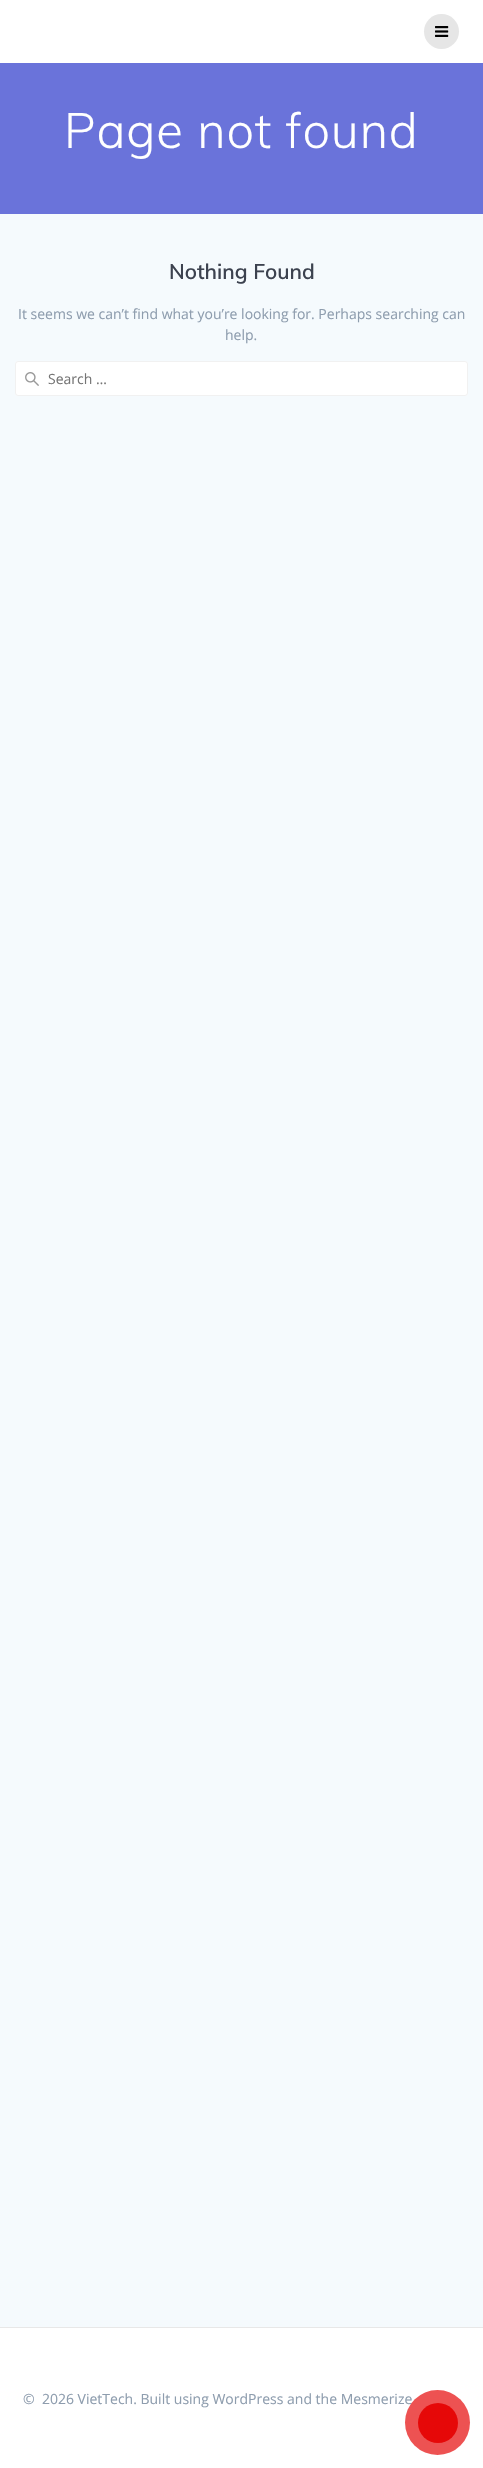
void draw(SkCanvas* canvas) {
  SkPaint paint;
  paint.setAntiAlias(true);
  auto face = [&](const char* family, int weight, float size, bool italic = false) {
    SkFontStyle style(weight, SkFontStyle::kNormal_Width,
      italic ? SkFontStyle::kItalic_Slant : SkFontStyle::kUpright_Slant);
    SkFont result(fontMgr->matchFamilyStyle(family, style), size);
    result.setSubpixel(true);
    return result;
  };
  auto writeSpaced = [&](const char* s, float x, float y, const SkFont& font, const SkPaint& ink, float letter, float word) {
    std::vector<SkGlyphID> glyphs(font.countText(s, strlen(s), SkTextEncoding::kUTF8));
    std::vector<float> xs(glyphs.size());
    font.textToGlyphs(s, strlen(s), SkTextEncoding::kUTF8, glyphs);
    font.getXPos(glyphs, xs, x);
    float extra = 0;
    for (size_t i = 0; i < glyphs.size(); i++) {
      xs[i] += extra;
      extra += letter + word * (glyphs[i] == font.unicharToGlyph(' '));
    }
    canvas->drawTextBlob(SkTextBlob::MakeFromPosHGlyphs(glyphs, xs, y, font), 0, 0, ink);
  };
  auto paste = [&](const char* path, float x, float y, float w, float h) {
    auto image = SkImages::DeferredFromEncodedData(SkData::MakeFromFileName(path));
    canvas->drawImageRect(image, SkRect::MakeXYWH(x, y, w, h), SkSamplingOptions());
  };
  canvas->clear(0xffffffff);
  paint.setColor(0xffe6e6e6);
  canvas->drawCircle(441.5f, 31.5f, 17.5f, paint);
  paste("img/1.png", 435, 26, 14, 11);
  paint.setColor(0xff6a73da);
  canvas->drawRect(SkRect::MakeXYWH(0, 63, 483, 151), paint);
  paint.setColor(0xfff5fafd);
  canvas->drawRect(SkRect::MakeXYWH(0, 214, 483, 2113), paint);
  paint.setColor(0xffffffff);
  canvas->drawRoundRect(SkRect::MakeXYWH(15, 361, 453, 35), 3, 3, paint);
  paste("img/2.png", 25, 372, 14, 14);
  paint.setStroke(true);
  paint.setStrokeWidth(1);
  paint.setColor(0xfff1f1f1);
  canvas->drawRoundRect(SkRect::MakeXYWH(15.5f, 361.5f, 452, 34), 2.5f, 2.5f, paint);
  paint.setStroke(false);
  paint.setColor(0xffe8e8e8);
  canvas->drawRect(SkRect::MakeXYWH(0, 2327, 483, 1), paint);
  auto f0 = face("Muli", 300, 49);
  paint.setColor(0xffffffff);
  writeSpaced("Page not found", 64, 148, f0, paint, 0.9f, 0);
  auto f1 = face("Muli", 600, 21);
  paint.setColor(0xff3c424f);
  canvas->drawString("Nothing Found", 169, 279, f1, paint);
  auto f2 = face("Open Sans", 400, 14);
  paint.setColor(0xff8e9dae);
  canvas->drawString("It seems we can’t find what you’re looking for. Perhaps searching can", 18, 319, f2, paint);
  canvas->drawString("help.", 225, 340, f2, paint);
  paint.setColor(0xff757575);
  canvas->drawString("Search …", 48, 384, f2, paint);
  paint.setColor(0xff8e9dae);
  canvas->drawString("©  2026 VietTech. Built using WordPress and the Mesmerize", 23, 2404, f2, paint);
  paint.setColor(0xb3e60808);
  canvas->drawCircle(437.5f, 2422.5f, 32.5f, paint);
  paint.setColor(0xffe60808);
  canvas->drawCircle(438, 2423, 20, paint);
}
